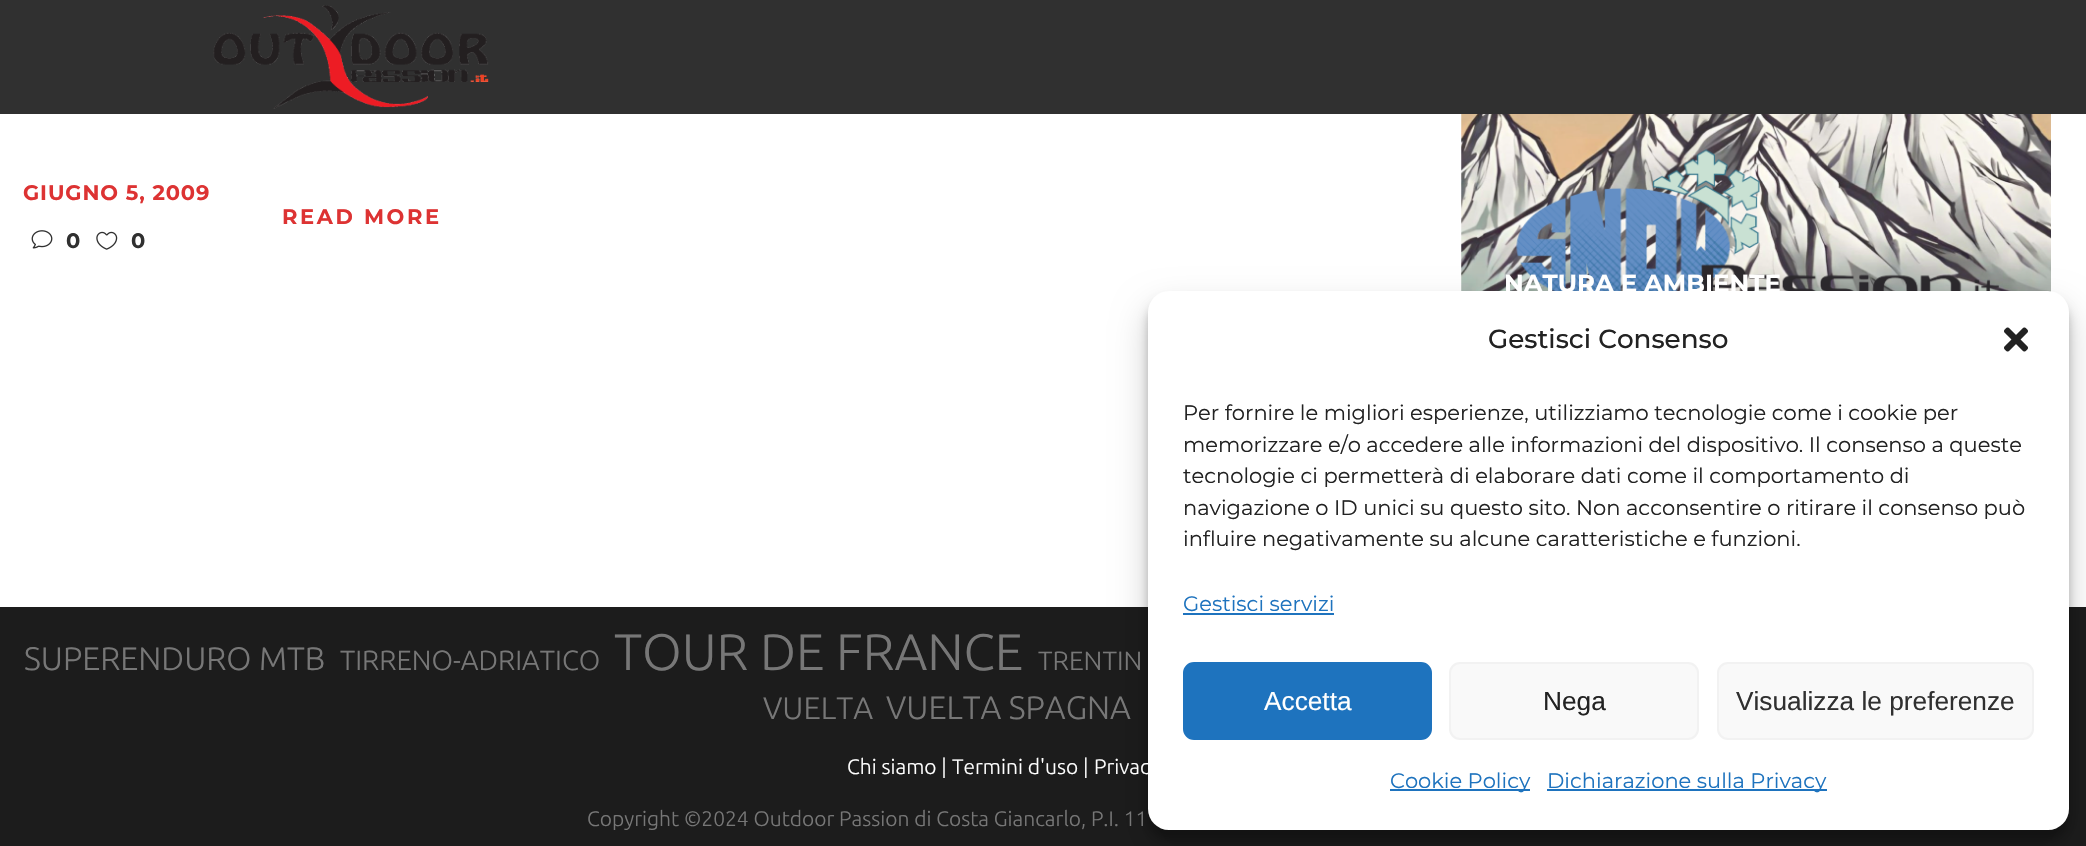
void draw(SkCanvas* canvas) {
  SkPaint paint;
  paint.setAntiAlias(true);
  auto face = [&](const char* family, int weight, float size, bool italic = false) {
    SkFontStyle style(weight, SkFontStyle::kNormal_Width,
      italic ? SkFontStyle::kItalic_Slant : SkFontStyle::kUpright_Slant);
    SkFont result(fontMgr->matchFamilyStyle(family, style), size);
    result.setSubpixel(true);
    return result;
  };
  auto writeSpaced = [&](const char* s, float x, float y, const SkFont& font, const SkPaint& ink, float letter, float word) {
    std::vector<SkGlyphID> glyphs(font.countText(s, strlen(s), SkTextEncoding::kUTF8));
    std::vector<float> xs(glyphs.size());
    font.textToGlyphs(s, strlen(s), SkTextEncoding::kUTF8, glyphs);
    font.getXPos(glyphs, xs, x);
    float extra = 0;
    for (size_t i = 0; i < glyphs.size(); i++) {
      xs[i] += extra;
      extra += letter + word * (glyphs[i] == font.unicharToGlyph(' '));
    }
    canvas->drawTextBlob(SkTextBlob::MakeFromPosHGlyphs(glyphs, xs, y, font), 0, 0, ink);
  };
  auto paste = [&](const char* path, float x, float y, float w, float h) {
    auto image = SkImages::DeferredFromEncodedData(SkData::MakeFromFileName(path));
    canvas->drawImageRect(image, SkRect::MakeXYWH(x, y, w, h), SkSamplingOptions());
  };
  canvas->clear(0xff1c1c1c);
  paint.setColor(0xffffffff);
  canvas->drawRect(SkRect::MakeXYWH(0, 114, 2086, 493), paint);
  paste("img/1.png", 31, 230, 22, 19);
  paste("img/2.png", 96, 231, 22, 19);
  paste("img/3.png", 1461, 114, 590, 178);
  paint.setColor(0xff303030);
  canvas->drawRect(SkRect::MakeXYWH(0, 0, 2086, 114), paint);
  paste("img/4.png", 213, 5, 276, 104);
  paint.setColor(0x3b000000);
  paint.setMaskFilter(SkMaskFilter::MakeBlur(kNormal_SkBlurStyle, 5));
  canvas->drawRoundRect(SkRect::MakeXYWH(1148, 301, 921, 539), 21, 21, paint);
  paint.setMaskFilter(nullptr);
  paint.setColor(0x30000000);
  paint.setMaskFilter(SkMaskFilter::MakeBlur(kNormal_SkBlurStyle, 17.5f));
  canvas->drawRoundRect(SkRect::MakeXYWH(1148, 308, 921, 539), 21, 21, paint);
  paint.setMaskFilter(nullptr);
  paint.setColor(0xffffffff);
  canvas->drawRoundRect(SkRect::MakeXYWH(1148, 291, 921, 539), 21, 21, paint);
  paste("img/5.png", 2004, 327, 24, 25);
  paint.setColor(0xff1e73be);
  canvas->drawRect(SkRect::MakeXYWH(1183, 613, 151, 2), paint);
  canvas->drawRoundRect(SkRect::MakeXYWH(1184, 663, 247, 76), 10, 10, paint);
  paint.setStroke(true);
  paint.setStrokeWidth(2);
  canvas->drawRoundRect(SkRect::MakeXYWH(1184, 663, 247, 76), 10, 10, paint);
  paint.setStroke(false);
  paint.setColor(0xfff9f9f9);
  canvas->drawRoundRect(SkRect::MakeXYWH(1450, 663, 248, 76), 10, 10, paint);
  paint.setStroke(true);
  paint.setColor(0xfff2f2f2);
  canvas->drawRoundRect(SkRect::MakeXYWH(1450, 663, 248, 76), 10, 10, paint);
  paint.setStroke(false);
  paint.setColor(0xfff9f9f9);
  canvas->drawRoundRect(SkRect::MakeXYWH(1718, 663, 315, 76), 10, 10, paint);
  paint.setStroke(true);
  paint.setColor(0xfff2f2f2);
  canvas->drawRoundRect(SkRect::MakeXYWH(1718, 663, 315, 76), 10, 10, paint);
  paint.setStroke(false);
  paint.setColor(0xff1e73be);
  canvas->drawRect(SkRect::MakeXYWH(1390, 789, 140, 2), paint);
  canvas->drawRect(SkRect::MakeXYWH(1547, 789, 280, 2), paint);
  auto f0 = face("Montserrat", 700, 21);
  paint.setColor(0xffdd3333);
  writeSpaced("GIUGNO 5, 2009", 23, 200, f0, paint, 0.9f, 0);
  paint.setColor(0xff303030);
  writeSpaced("0", 66, 248, f0, paint, 0.9f, 0);
  writeSpaced("0", 131, 248, f0, paint, 0.9f, 0);
  paint.setColor(0xffdd3333);
  writeSpaced("READ MORE", 282, 224, f0, paint, 2.6f, 0);
  auto f1 = face("Montserrat", 700, 24.5f);
  paint.setColor(0xffffffff);
  canvas->drawString("NATURA E AMBIENTE", 1504, 292, f1, paint);
  auto f2 = face("Ubuntu", 300, 32.5f);
  paint.setColor(0xff777777);
  canvas->drawString("SUPERENDURO MTB", 24, 670, f2, paint);
  auto f3 = face("Ubuntu", 300, 27.75f);
  canvas->drawString("TIRRENO-ADRIATICO", 340, 670, f3, paint);
  auto f4 = face("Ubuntu", 300, 51.25f);
  canvas->drawString("TOUR DE FRANCE", 614, 670, f4, paint);
  auto f5 = face("Ubuntu", 300, 26.5f);
  canvas->drawString("TRENTIN", 1038, 670, f5, paint);
  auto f6 = face("Ubuntu", 300, 31);
  canvas->drawString("VUELTA", 763, 719, f6, paint);
  canvas->drawString("VUELTA SPAGNA", 886, 719, f2, paint);
  auto f7 = face("Ubuntu", 300, 21);
  paint.setColor(0xffffffff);
  {
    const struct { const char* s; float x, y; } items[] = {
      {"Chi siamo |", 847, 774},
      {"Termini d'uso |", 952, 774},
      {"Privac", 1094, 774},
    };
    for (auto [s, x, y] : items) {
      canvas->drawString(s, x, y, f7, paint);
    }
  }
  paint.setColor(0xff777777);
  canvas->drawString("Copyright ©2024 Outdoor Passion di Costa Giancarlo, P.I. 11", 587, 826, f7, paint);
  auto f8 = face("Montserrat", 500, 26.25f);
  paint.setColor(0xff222222);
  canvas->drawString("Gestisci Consenso", 1488, 348, f8, paint);
  auto f9 = face("Montserrat", 400, 21);
  {
    const struct { const char* s; float x, y; } items[] = {
      {"Per fornire le migliori esperienze, utilizziamo tecnologie come i cookie per", 1183, 420},
      {"memorizzare e/o accedere alle informazioni del dispositivo. Il consenso a queste", 1183, 452},
      {"tecnologie ci permetterà di elaborare dati come il comportamento di", 1183, 483},
      {"navigazione o ID unici su questo sito. Non acconsentire o ritirare il consenso può", 1183, 515},
      {"influire negativamente su alcune caratteristiche e funzioni.", 1183, 546},
    };
    for (auto [s, x, y] : items) {
      canvas->drawString(s, x, y, f9, paint);
    }
  }
  paint.setColor(0xff1e73be);
  canvas->drawString("Gestisci servizi", 1183, 611, f9, paint);
  auto f10 = face("Liberation Sans", 400, 26.25f);
  paint.setColor(0xffffffff);
  canvas->drawString("Accetta", 1264, 710, f10, paint);
  paint.setColor(0xff222222);
  canvas->drawString("Nega", 1543, 710, f10, paint);
  paint.setColor(0xff303030);
  canvas->drawString("Visualizza le preferenze", 1736, 710, f10, paint);
  paint.setColor(0xff1e73be);
  canvas->drawString("Cookie Policy", 1390, 788, f9, paint);
  canvas->drawString("Dichiarazione sulla Privacy", 1547, 788, f9, paint);
}
